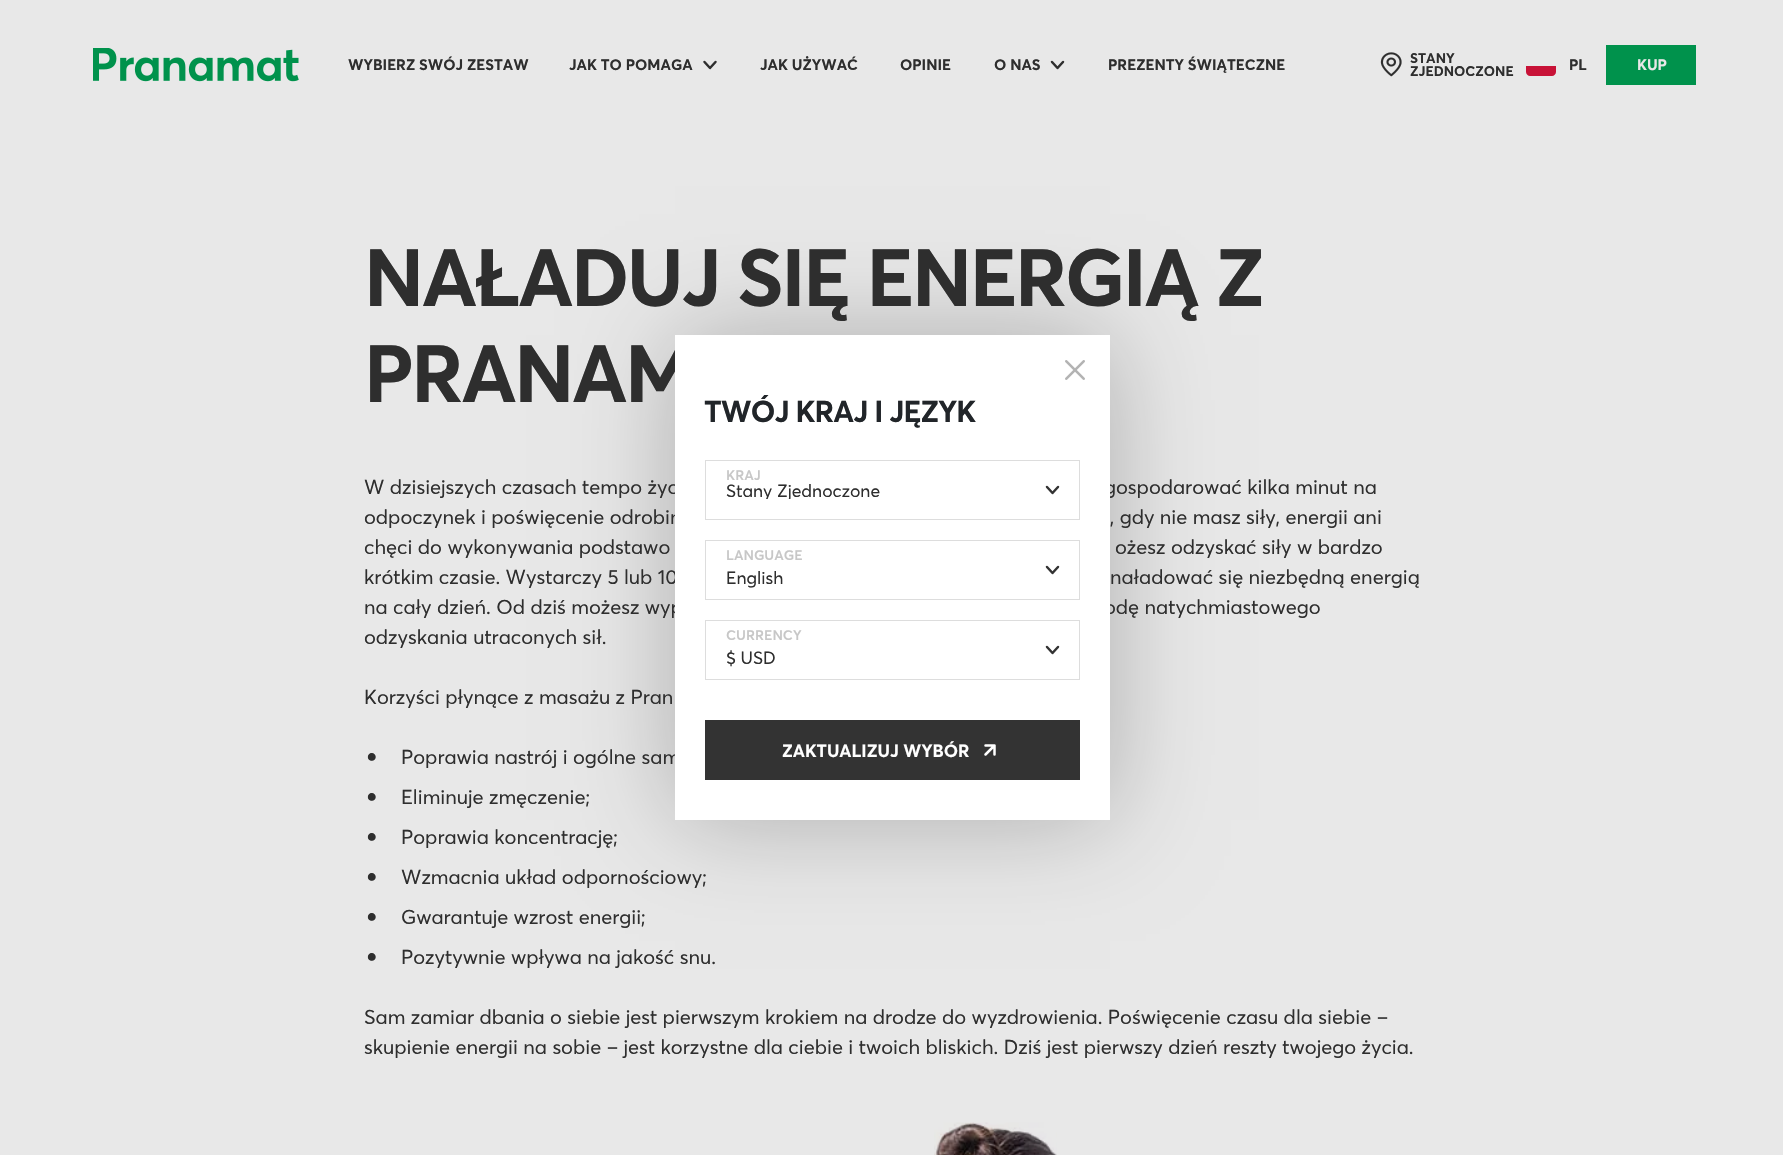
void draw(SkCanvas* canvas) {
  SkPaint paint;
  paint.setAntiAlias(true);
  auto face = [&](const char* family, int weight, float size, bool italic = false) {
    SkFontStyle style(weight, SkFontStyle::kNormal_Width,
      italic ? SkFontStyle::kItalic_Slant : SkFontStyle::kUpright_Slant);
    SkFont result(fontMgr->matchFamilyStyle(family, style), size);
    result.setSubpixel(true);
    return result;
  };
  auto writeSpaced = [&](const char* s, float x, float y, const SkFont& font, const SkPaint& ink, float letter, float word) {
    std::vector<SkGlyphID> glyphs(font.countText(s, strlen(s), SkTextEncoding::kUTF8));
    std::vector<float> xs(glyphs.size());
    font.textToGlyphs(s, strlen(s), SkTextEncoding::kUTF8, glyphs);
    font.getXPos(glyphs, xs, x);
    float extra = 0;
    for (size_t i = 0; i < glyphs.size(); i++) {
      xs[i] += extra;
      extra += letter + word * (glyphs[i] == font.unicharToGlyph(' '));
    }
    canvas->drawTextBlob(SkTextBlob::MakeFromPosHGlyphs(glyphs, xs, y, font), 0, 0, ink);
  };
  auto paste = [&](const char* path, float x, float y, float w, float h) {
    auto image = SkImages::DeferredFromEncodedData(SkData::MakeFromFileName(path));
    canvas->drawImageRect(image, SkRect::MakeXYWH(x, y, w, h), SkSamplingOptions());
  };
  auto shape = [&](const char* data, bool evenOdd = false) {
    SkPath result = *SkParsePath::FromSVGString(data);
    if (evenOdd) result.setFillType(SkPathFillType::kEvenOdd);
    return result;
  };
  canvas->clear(0xffe8e8e8);
  paste("img/1.png", 93, 48, 206, 34);
  paint.setStroke(true);
  paint.setStrokeWidth(2.5f);
  paint.setStrokeCap(SkPaint::kRound_Cap);
  paint.setStrokeJoin(SkPaint::kRound_Join);
  paint.setColor(0xff2e2e2e);
  canvas->drawPath(shape("M704.5 62L710 68L715.5 62"), paint);
  canvas->drawPath(shape("M1052 62L1057.5 68L1063 62"), paint);
  paste("img/2.png", 1380, 52, 22, 25);
  paint.setStroke(false);
  paint.setColor(0xffc81237);
  canvas->drawPath(shape("M1526 66H1556V72C1556 74 1554 76 1552 76H1530C1528 76 1526 74 1526 72Z"), paint);
  paint.setColor(0xff00924c);
  canvas->drawRect(SkRect::MakeXYWH(1606, 45, 90, 40), paint);
  paste("img/3.png", 934, 1122, 123, 33);
  paint.setColor(0x40000000);
  paint.setMaskFilter(SkMaskFilter::MakeBlur(kNormal_SkBlurStyle, 50));
  canvas->drawRect(SkRect::MakeXYWH(675, 335, 435, 485), paint);
  paint.setMaskFilter(nullptr);
  auto f0 = face("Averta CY", 700, 15);
  paint.setColor(0xff2e2e2e);
  {
    const struct { const char* s; float x, y; } items[] = {
      {"WYBIERZ SWÓJ ZESTAW", 348, 70},
      {"JAK TO POMAGA", 569, 70},
      {"JAK UŻYWAĆ", 760, 70},
      {"OPINIE", 900, 70},
      {"O NAS", 994, 70},
      {"PREZENTY ŚWIĄTECZNE", 1108, 70},
    };
    for (auto [s, x, y] : items) {
      canvas->drawString(s, x, y, f0, paint);
    }
  }
  auto f1 = face("Averta CY", 700, 13.75f);
  canvas->drawString("STANY", 1410, 63, f1, paint);
  canvas->drawString("ZJEDNOCZONE", 1410, 76, f1, paint);
  canvas->drawString("PL", 1569, 70, f0, paint);
  paint.setColor(0xffe8e8e8);
  canvas->drawString("KUP", 1637, 70, f0, paint);
  auto f2 = face("Averta CY", 700, 80);
  paint.setColor(0xff2e2e2e);
  writeSpaced("NAŁADUJ SIĘ ENERGIĄ Z", 364, 306, f2, paint, -2.5f, 0);
  writeSpaced("PRANAM", 364, 402, f2, paint, -2.5f, 0);
  auto f3 = face("Averta CY", 400, 20);
  {
    const struct { const char* s; float x, y; } items[] = {
      {"W dzisiejszych czasach tempo życ", 364, 494},
      {"gospodarować kilka minut na", 1104, 494},
      {"odpoczynek i poświęcenie odrobin", 364, 524},
      {", gdy nie masz siły, energii ani", 1110, 524},
      {"chęci do wykonywania podstawo", 364, 554},
      {"ożesz odzyskać siły w bardzo", 1115, 554},
      {"krótkim czasie. Wystarczy 5 lub 10", 364, 584},
      {"naładować się niezbędną energią", 1110, 584},
      {"na cały dzień. Od dziś możesz wyp", 364, 614},
      {"odę natychmiastowego", 1104, 614},
      {"odzyskania utraconych sił.", 364, 644},
      {"Korzyści płynące z masażu z Pran", 364, 704},
    };
    for (auto [s, x, y] : items) {
      canvas->drawString(s, x, y, f3, paint);
    }
  }
  auto f4 = face("Averta CY", 400, 38);
  canvas->drawString("•", 364, 769, f4, paint);
  canvas->drawString("Poprawia nastrój i ogólne sam", 401, 764, f3, paint);
  canvas->drawString("•", 364, 809, f4, paint);
  canvas->drawString("Eliminuje zmęczenie;", 401, 804, f3, paint);
  canvas->drawString("•", 364, 849, f4, paint);
  canvas->drawString("Poprawia koncentrację;", 401, 844, f3, paint);
  canvas->drawString("•", 364, 889, f4, paint);
  canvas->drawString("Wzmacnia układ odpornościowy;", 401, 884, f3, paint);
  canvas->drawString("•", 364, 929, f4, paint);
  canvas->drawString("Gwarantuje wzrost energii;", 401, 924, f3, paint);
  canvas->drawString("•", 364, 969, f4, paint);
  {
    const struct { const char* s; float x, y; } items[] = {
      {"Pozytywnie wpływa na jakość snu.", 401, 964},
      {"Sam zamiar dbania o siebie jest pierwszym krokiem na drodze do wyzdrowienia. Poświęcenie czasu dla siebie –", 364, 1024},
      {"skupienie energii na sobie – jest korzystne dla ciebie i twoich bliskich. Dziś jest pierwszy dzień reszty twojego życia.", 364, 1054},
    };
    for (auto [s, x, y] : items) {
      canvas->drawString(s, x, y, f3, paint);
    }
  }
  paint.setColor(0xffffffff);
  canvas->drawRect(SkRect::MakeXYWH(675, 335, 435, 485), paint);
  paste("img/4.png", 1065, 360, 20, 20);
  auto f5 = face("Averta CY", 700, 30);
  paint.setColor(0xff212529);
  writeSpaced("TWÓJ KRAJ I JĘZYK", 704, 422, f5, paint, -0.9f, 0);
  paint.setStroke(true);
  paint.setColor(0xff333333);
  canvas->drawPath(shape("M1047 487L1052.5 493L1058 487"), paint);
  paint.setStrokeWidth(1);
  paint.setStrokeCap(SkPaint::kButt_Cap);
  paint.setStrokeJoin(SkPaint::kMiter_Join);
  paint.setColor(0xffdddddd);
  canvas->drawRect(SkRect::MakeXYWH(705.5f, 460.5f, 374, 59), paint);
  auto f6 = face("Averta CY", 600, 13.75f);
  paint.setStroke(false);
  paint.setColor(0xffc7c7c7);
  canvas->drawString("KRAJ", 726, 480, f6, paint);
  canvas->save();
  canvas->clipRect(SkRect::MakeXYWH(726, 481, 303, 18));
  auto f7 = face("Averta CY", 400, 17.5f);
  paint.setColor(0xff2e2e2e);
  canvas->drawString("Stany Zjednoczone", 726, 497, f7, paint);
  canvas->restore();
  paint.setStroke(true);
  paint.setStrokeWidth(2.5f);
  paint.setStrokeCap(SkPaint::kRound_Cap);
  paint.setStrokeJoin(SkPaint::kRound_Join);
  paint.setColor(0xff333333);
  canvas->drawPath(shape("M1047 567L1052.5 573L1058 567"), paint);
  paint.setStrokeWidth(1);
  paint.setStrokeCap(SkPaint::kButt_Cap);
  paint.setStrokeJoin(SkPaint::kMiter_Join);
  paint.setColor(0xffdddddd);
  canvas->drawRect(SkRect::MakeXYWH(705.5f, 540.5f, 374, 59), paint);
  paint.setStroke(false);
  paint.setColor(0xffc7c7c7);
  canvas->drawString("LANGUAGE", 726, 560, f6, paint);
  paint.setColor(0xff2e2e2e);
  canvas->drawString("English", 726, 584, f7, paint);
  paint.setStroke(true);
  paint.setStrokeWidth(2.5f);
  paint.setStrokeCap(SkPaint::kRound_Cap);
  paint.setStrokeJoin(SkPaint::kRound_Join);
  paint.setColor(0xff333333);
  canvas->drawPath(shape("M1047 647L1052.5 653L1058 647"), paint);
  paint.setStrokeWidth(1);
  paint.setStrokeCap(SkPaint::kButt_Cap);
  paint.setStrokeJoin(SkPaint::kMiter_Join);
  paint.setColor(0xffdddddd);
  canvas->drawRect(SkRect::MakeXYWH(705.5f, 620.5f, 374, 59), paint);
  paint.setStroke(false);
  paint.setColor(0xffc7c7c7);
  canvas->drawString("CURRENCY", 726, 640, f6, paint);
  paint.setColor(0xff2e2e2e);
  canvas->drawString("$ USD", 726, 664, f7, paint);
  paint.setColor(0xff333333);
  canvas->drawRect(SkRect::MakeXYWH(705, 720, 375, 60), paint);
  auto f8 = face("Averta CY", 700, 17.5f);
  paint.setColor(0xffffffff);
  canvas->drawString("ZAKTUALIZUJ WYBÓR", 782, 757, f8, paint);
  paint.setStroke(true);
  paint.setStrokeWidth(2.5f);
  paint.setStrokeCap(SkPaint::kRound_Cap);
  paint.setStrokeJoin(SkPaint::kRound_Join);
  canvas->drawPath(shape("M994.5 754.5V745.5H985.5M985.5 754.5L994.5 745.5"), paint);
}
